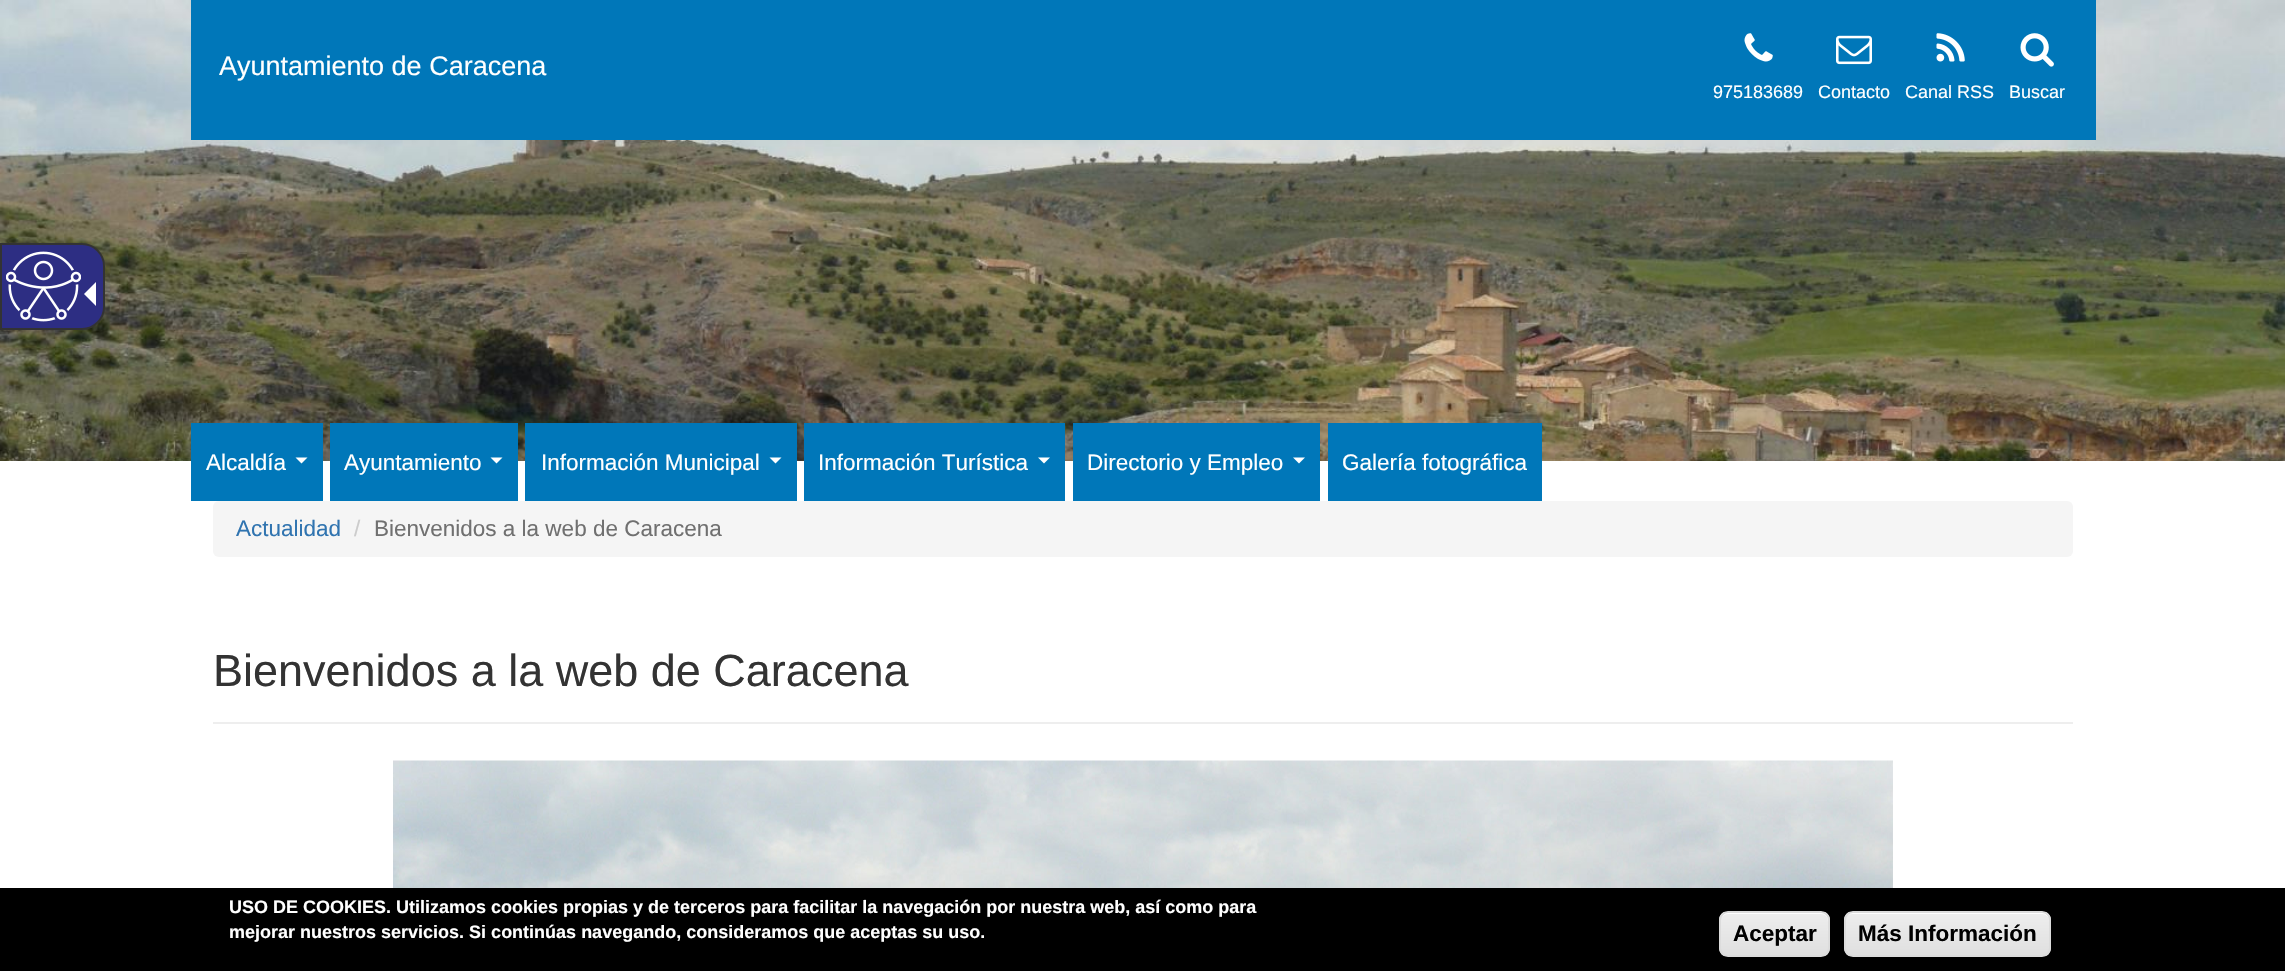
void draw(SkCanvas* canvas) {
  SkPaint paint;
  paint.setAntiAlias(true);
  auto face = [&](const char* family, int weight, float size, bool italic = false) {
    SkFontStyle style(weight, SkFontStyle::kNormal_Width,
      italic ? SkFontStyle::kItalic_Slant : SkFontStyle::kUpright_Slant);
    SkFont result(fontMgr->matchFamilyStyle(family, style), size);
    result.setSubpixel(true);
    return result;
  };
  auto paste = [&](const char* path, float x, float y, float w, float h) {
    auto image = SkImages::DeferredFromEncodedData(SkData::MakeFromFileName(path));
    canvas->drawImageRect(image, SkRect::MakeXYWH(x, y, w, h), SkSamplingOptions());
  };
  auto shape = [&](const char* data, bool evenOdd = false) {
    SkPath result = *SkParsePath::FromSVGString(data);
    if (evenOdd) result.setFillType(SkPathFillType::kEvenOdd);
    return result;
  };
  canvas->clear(0xffffffff);
  paste("img/2.png", 0, 0, 2285, 461);
  paint.setColor(0xff2d2e83);
  canvas->drawPath(shape("M1 244H82C94 244 104 254 104 266V307C104 319 94 329 82 329H1Z"), paint);
  paint.setStroke(true);
  paint.setStrokeWidth(2);
  paint.setColor(0xff333333);
  canvas->drawPath(shape("M1 244H82C94 244 104 254 104 266V307C104 319 94 329 82 329H1Z"), paint);
  paste("img/1.png", 6, 251, 75, 71);
  paint.setStroke(false);
  paint.setColor(0xffffffff);
  canvas->drawPath(shape("M96 282V306L84 294Z"), paint);
  paint.setColor(0xff0077b9);
  canvas->drawRect(SkRect::MakeXYWH(191, 0, 1905, 140), paint);
  paste("img/3.png", 1744, 33, 29, 29);
  paste("img/4.png", 1836, 35, 36, 30);
  paste("img/5.png", 1936, 33, 29, 29);
  paste("img/6.png", 2020, 33, 34, 34);
  canvas->drawRect(SkRect::MakeXYWH(191, 423, 132, 78), paint);
  paint.setColor(0xffffffff);
  canvas->drawPath(shape("M295.5 457.5H307.5L301.5 463.5Z"), paint);
  paint.setColor(0xff0077b9);
  canvas->drawRect(SkRect::MakeXYWH(330, 423, 188, 78), paint);
  paint.setColor(0xffffffff);
  canvas->drawPath(shape("M490.5 457.5H502.5L496.5 463.5Z"), paint);
  paint.setColor(0xff0077b9);
  canvas->drawRect(SkRect::MakeXYWH(525, 423, 272, 78), paint);
  paint.setColor(0xffffffff);
  canvas->drawPath(shape("M769.5 457.5H781.5L775.5 463.5Z"), paint);
  paint.setColor(0xff0077b9);
  canvas->drawRect(SkRect::MakeXYWH(804, 423, 261, 78), paint);
  paint.setColor(0xffffffff);
  canvas->drawPath(shape("M1038 457.5H1050L1044 463.5Z"), paint);
  paint.setColor(0xff0077b9);
  canvas->drawRect(SkRect::MakeXYWH(1073, 423, 247, 78), paint);
  paint.setColor(0xffffffff);
  canvas->drawPath(shape("M1293 457.5H1305L1299 463.5Z"), paint);
  paint.setColor(0xff0077b9);
  canvas->drawRect(SkRect::MakeXYWH(1328, 423, 214, 78), paint);
  paint.setColor(0xfff5f5f5);
  canvas->drawRoundRect(SkRect::MakeXYWH(213, 501, 1860, 56), 6, 6, paint);
  paint.setColor(0xffeeeeee);
  canvas->drawRect(SkRect::MakeXYWH(213, 722, 1860, 2), paint);
  paste("img/7.png", 393, 760, 1500, 128);
  paint.setColor(0xff000000);
  canvas->drawRect(SkRect::MakeXYWH(0, 888, 2285, 83), paint);
  canvas->save();
  canvas->clipPath(shape("M1728 911H1821C1826 911 1830 915 1830 920V948C1830 953 1826 957 1821 957H1728C1723 957 1719 953 1719 948V920C1719 915 1723 911 1728 911Z"), true);
  {
    const SkColor colors[] = {0xffededed, 0xffdfdfdf};
    const float stops[] = {0.05f, 1};
    const SkPoint ends[] = {{1775, 912}, {1775, 956}};
    paint.setShader(SkGradientShader::MakeLinear(ends, colors, stops, 2, SkTileMode::kClamp));
    paint.setAlpha(255);
  }
  canvas->drawRect(SkRect::MakeXYWH(1719, 912, 111, 44), paint);
  canvas->restore();
  paint.setShader(nullptr);
  paint.setColor(0xffffffff);
  canvas->drawPath(shape("M1728 914H1821C1830 914 1828 925 1828 931V953C1828 951 1829 950 1829 948V920C1829 916 1825 912 1821 912H1729C1726 912 1723 914 1722 917C1723 915 1726 914 1728 914Z"), paint);
  paint.setStroke(true);
  paint.setColor(0xffdcdcdc);
  canvas->drawRoundRect(SkRect::MakeXYWH(1720, 912, 109, 44), 8, 8, paint);
  canvas->save();
  canvas->clipPath(shape("M1853 911H2042C2047 911 2051 915 2051 920V948C2051 953 2047 957 2042 957H1853C1848 957 1844 953 1844 948V920C1844 915 1848 911 1853 911Z"), true);
  paint.setStroke(false);
  {
    const SkColor colors[] = {0xffededed, 0xffdfdfdf};
    const float stops[] = {0.05f, 1};
    const SkPoint ends[] = {{1947, 912}, {1947, 956}};
    paint.setShader(SkGradientShader::MakeLinear(ends, colors, stops, 2, SkTileMode::kClamp));
    paint.setAlpha(255);
  }
  canvas->drawRect(SkRect::MakeXYWH(1844, 912, 207, 44), paint);
  canvas->restore();
  paint.setShader(nullptr);
  paint.setColor(0xffffffff);
  canvas->drawPath(shape("M1852 914H2042C2046 914 2049 917 2049 921V920C2049 916 2045 912 2041 912H1853C1849 912 1845 916 1845 920V921C1845 917 1848 914 1852 914Z"), paint);
  paint.setStroke(true);
  paint.setColor(0xffdcdcdc);
  canvas->drawRoundRect(SkRect::MakeXYWH(1845, 912, 205, 44), 8, 8, paint);
  auto f0 = face("Liberation Sans", 400, 27);
  paint.setStroke(false);
  paint.setColor(0xffffffff);
  canvas->drawString("Ayuntamiento de Caracena", 219, 75, f0, paint);
  auto f1 = face("Liberation Sans", 400, 18);
  {
    const struct { const char* s; float x, y; } items[] = {
      {"975183689", 1713, 98},
      {"Contacto", 1818, 98},
      {"Canal RSS", 1905, 98},
      {"Buscar", 2009, 98},
    };
    for (auto [s, x, y] : items) {
      canvas->drawString(s, x, y, f1, paint);
    }
  }
  auto f2 = face("Liberation Sans", 400, 22.5f);
  {
    const struct { const char* s; float x, y; } items[] = {
      {"Alcaldía", 206, 470},
      {"Ayuntamiento", 344, 470},
      {"Información Municipal", 541, 470},
      {"Información Turística", 818, 470},
      {"Directorio y Empleo", 1087, 470},
      {"Galería fotográfica", 1342, 470},
    };
    for (auto [s, x, y] : items) {
      canvas->drawString(s, x, y, f2, paint);
    }
  }
  paint.setColor(0xff3074b0);
  canvas->drawString("Actualidad", 236, 536, f2, paint);
  paint.setColor(0xffcccccc);
  canvas->drawString("/", 354, 536, f2, paint);
  paint.setColor(0xff707070);
  canvas->drawString("Bienvenidos a la web de Caracena", 374, 536, f2, paint);
  auto f3 = face("Liberation Sans", 400, 45);
  paint.setColor(0xff333333);
  canvas->drawString("Bienvenidos a la web de Caracena", 213, 686, f3, paint);
  auto f4 = face("Liberation Sans", 700, 18);
  paint.setColor(0xffffffff);
  canvas->drawString("USO DE COOKIES. Utilizamos cookies propias y de terceros para facilitar la navegación por nuestra web, así como para", 229, 913, f4, paint);
  canvas->drawString("mejorar nuestros servicios. Si continúas navegando, consideramos que aceptas su uso.", 229, 938, f4, paint);
  auto f5 = face("Liberation Sans", 700, 22.5f);
  paint.setColor(0xff000000);
  canvas->drawString("Aceptar", 1733, 941, f5, paint);
  canvas->drawString("Más Información", 1858, 941, f5, paint);
}
